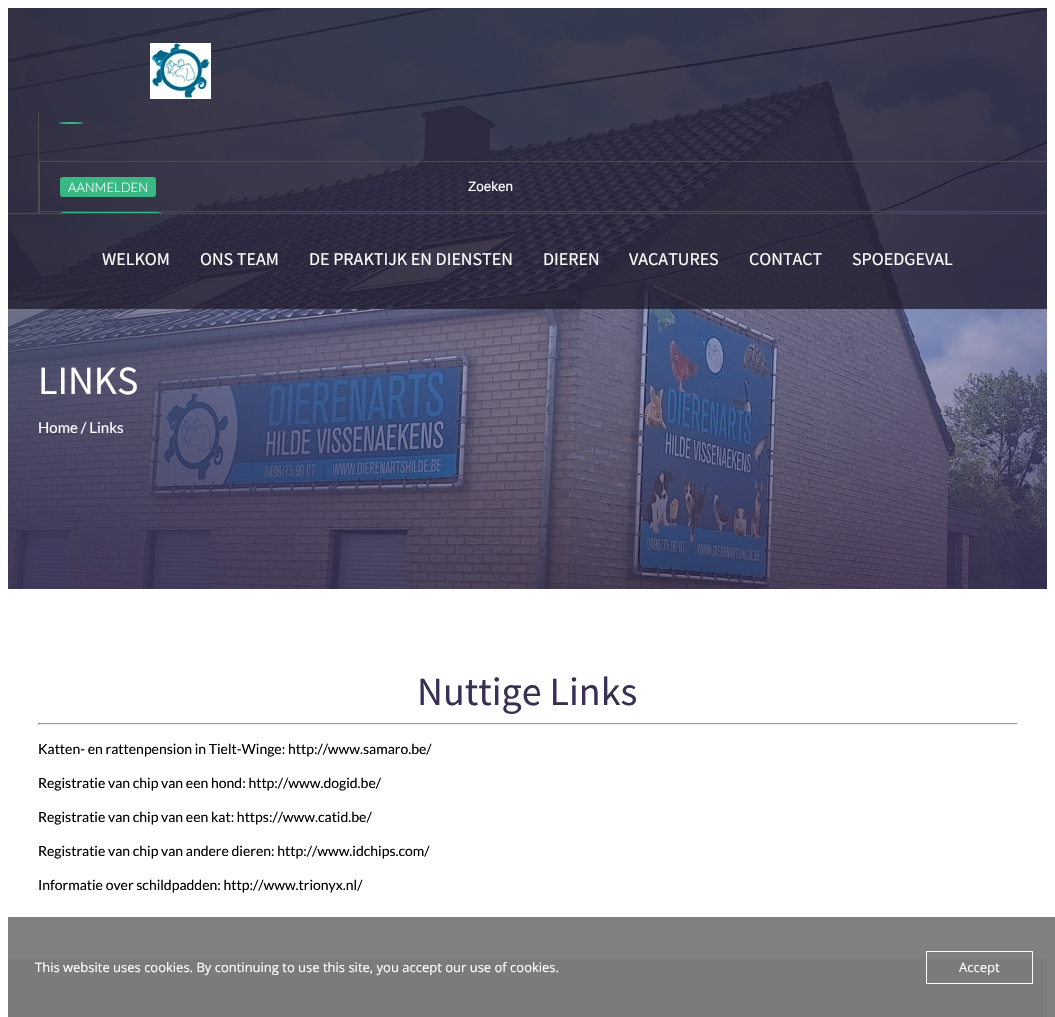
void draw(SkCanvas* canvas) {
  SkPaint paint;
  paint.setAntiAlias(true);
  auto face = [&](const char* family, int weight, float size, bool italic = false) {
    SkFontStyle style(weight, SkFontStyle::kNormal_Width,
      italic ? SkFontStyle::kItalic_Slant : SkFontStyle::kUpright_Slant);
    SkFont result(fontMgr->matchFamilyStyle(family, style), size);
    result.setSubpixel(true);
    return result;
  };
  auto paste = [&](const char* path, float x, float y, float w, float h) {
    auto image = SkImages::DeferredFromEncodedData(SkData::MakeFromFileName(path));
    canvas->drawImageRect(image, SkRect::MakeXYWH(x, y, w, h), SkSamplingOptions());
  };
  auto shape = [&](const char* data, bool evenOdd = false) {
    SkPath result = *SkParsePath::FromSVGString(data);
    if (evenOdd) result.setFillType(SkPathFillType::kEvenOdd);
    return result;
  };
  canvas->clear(0xffffffff);
  paint.setColor(0xff615977);
  canvas->drawRect(SkRect::MakeXYWH(8, 960, 1039, 57), paint);
  paste("img/2.png", 8, 8, 1039, 581);
  paste("img/3.png", 8, 8, 1039, 581);
  paint.setColor(0xcc211c2d);
  canvas->drawRect(SkRect::MakeXYWH(8, 8, 1039, 301), paint);
  paint.setColor(0xff4f4954);
  canvas->drawRect(SkRect::MakeXYWH(8, 213, 1039, 1), paint);
  paste("img/1.png", 150, 43, 61, 56);
  canvas->drawRect(SkRect::MakeXYWH(38, 112, 1, 101), paint);
  canvas->drawRect(SkRect::MakeXYWH(39, 161, 1008, 1), paint);
  paint.setColor(0xff38b883);
  canvas->drawOval(SkRect::MakeXYWH(59, 122, 24, 2), paint);
  paint.setColor(0xff4f4954);
  canvas->drawRect(SkRect::MakeXYWH(39, 211, 1008, 1), paint);
  canvas->drawRect(SkRect::MakeXYWH(39, 162, 1, 51), paint);
  paint.setColor(0xff38b883);
  canvas->drawRoundRect(SkRect::MakeXYWH(60, 177, 96, 20), 3, 3, paint);
  canvas->drawPath(shape("M63 212H158C159.5 212 161 213.5 161 215V213H60V215C60 213.5 61.5 212 63 212Z"), paint);
  {
    const struct { float x, y, w, h; SkColor color; } items[] = {
      {38, 723, 980, 1, 0xff9f9f9f},
      {1017, 723, 1, 2, 0xffeeeeee},
      {38, 724, 980, 1, 0xffeeeeee},
      {38, 723, 1, 2, 0xff9f9f9f},
      {363, 959, 1, 58, 0xff352c4d},
      {38, 959, 1, 58, 0xff352c4d},
      {8, 959, 1039, 1, 0xff807a8d},
      {8, 917, 1047, 100, 0xf77c7c7c},
    };
    for (auto [x, y, w, h, color] : items) {
      paint.setColor(color);
      canvas->drawRect(SkRect::MakeXYWH(x, y, w, h), paint);
    }
  }
  paint.setStroke(true);
  paint.setStrokeWidth(1);
  paint.setColor(0xf7ffffff);
  canvas->drawRect(SkRect::MakeXYWH(926.5f, 951.5f, 106, 32), paint);
  auto f0 = face("Lato", 300, 13);
  paint.setStroke(false);
  paint.setColor(0xffffffff);
  canvas->drawString("AANMELDEN", 68, 192, f0, paint);
  auto f1 = face("Liberation Sans", 400, 13.5f);
  canvas->drawString("Zoeken", 468, 191, f1, paint);
  auto f2 = face("Source Sans Pro", 400, 18);
  {
    const struct { const char* s; float x, y; } items[] = {
      {"WELKOM", 102, 265},
      {"ONS TEAM", 200, 265},
      {"DE PRAKTIJK EN DIENSTEN", 309, 265},
      {"DIEREN", 543, 265},
      {"VACATURES", 629, 265},
      {"CONTACT", 749, 265},
      {"SPOEDGEVAL", 852, 265},
    };
    for (auto [s, x, y] : items) {
      canvas->drawString(s, x, y, f2, paint);
    }
  }
  auto f3 = face("Source Sans Pro", 400, 40);
  canvas->drawString("LINKS", 38, 394, f3, paint);
  auto f4 = face("Lato", 400, 15);
  canvas->drawString("Home / Links", 38, 433, f4, paint);
  paint.setColor(0xff392f55);
  canvas->drawString("Nuttige Links", 417, 705, f3, paint);
  auto f5 = face("Lato", 400, 14);
  paint.setColor(0xff000000);
  {
    const struct { const char* s; float x, y; } items[] = {
      {"Katten- en rattenpension in Tielt-Winge: http://www.samaro.be/", 38, 754},
      {"Registratie van chip van een hond: http://www.dogid.be/", 38, 788},
      {"Registratie van chip van een kat: https://www.catid.be/", 38, 822},
      {"Registratie van chip van andere dieren: http://www.idchips.com/", 38, 856},
      {"Informatie over schildpadden: http://www.trionyx.nl/", 38, 890},
    };
    for (auto [s, x, y] : items) {
      canvas->drawString(s, x, y, f5, paint);
    }
  }
  auto f6 = face("Open Sans", 400, 13);
  paint.setColor(0xffffffff);
  canvas->drawString("This website uses cookies. By continuing to use this site, you accept our use of cookies.", 35, 972, f6, paint);
  canvas->drawString("Accept", 959, 972, f6, paint);
}
